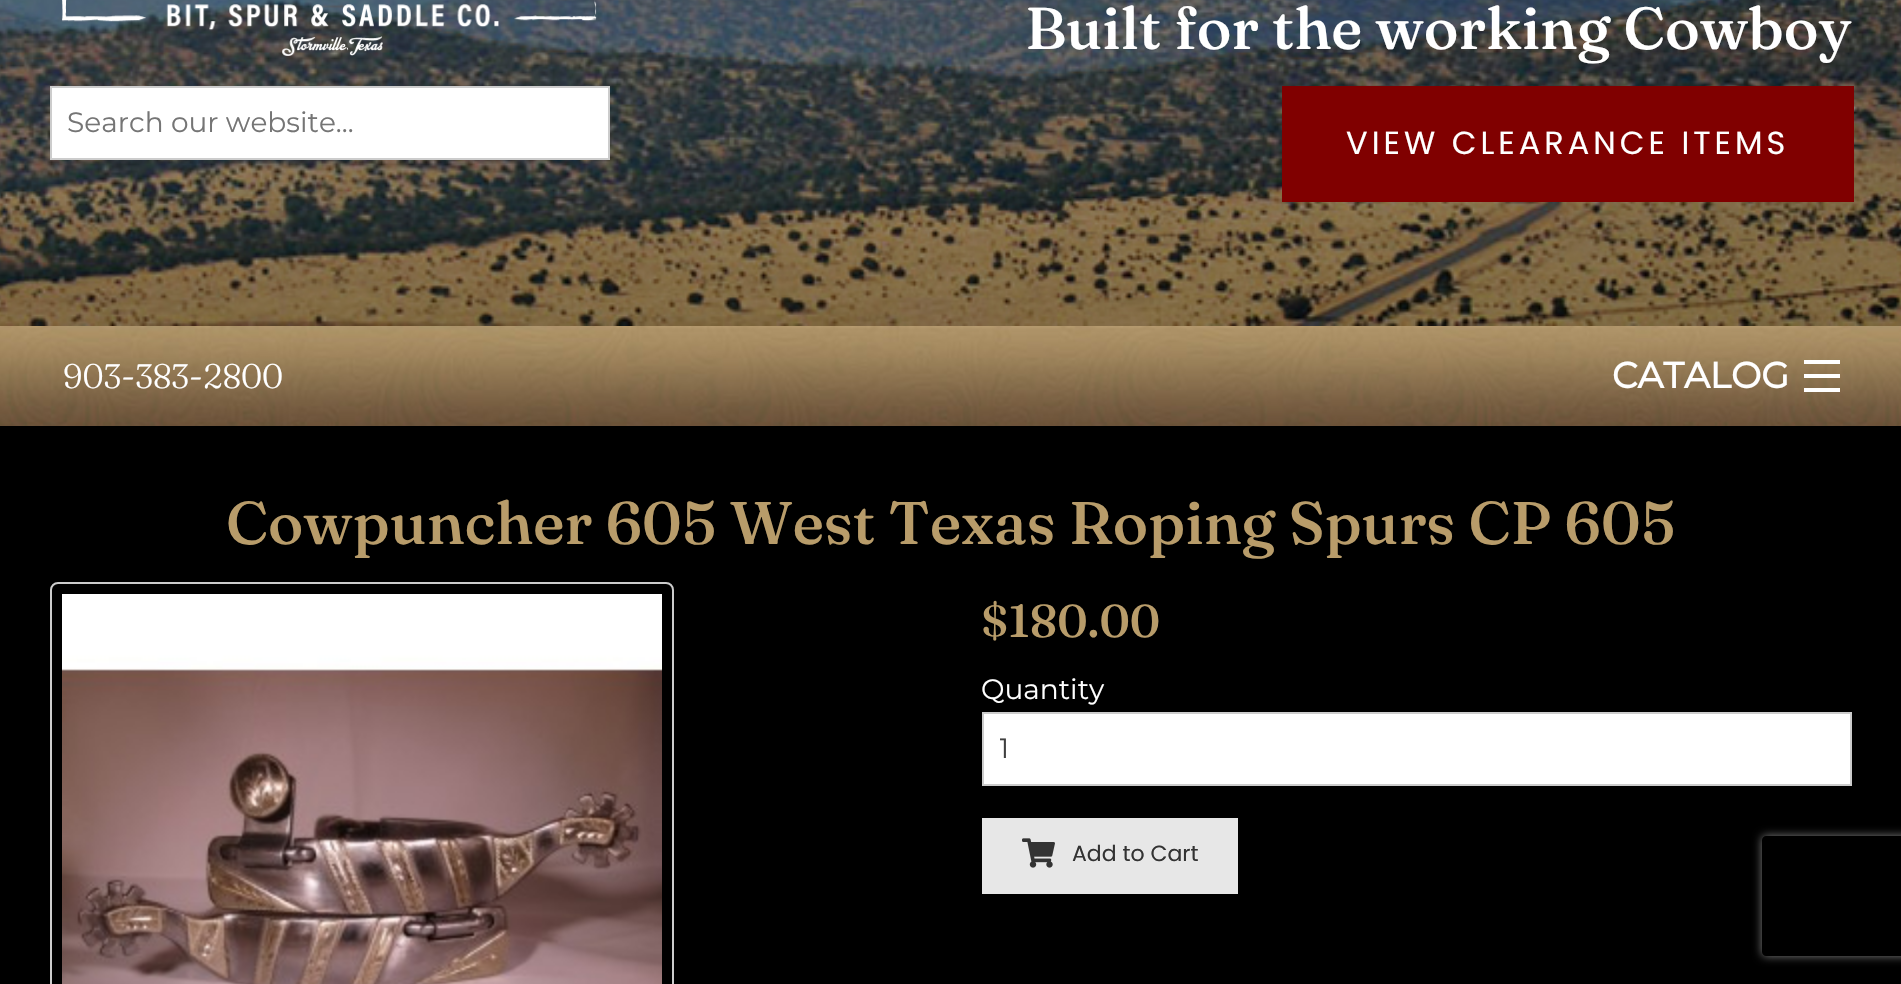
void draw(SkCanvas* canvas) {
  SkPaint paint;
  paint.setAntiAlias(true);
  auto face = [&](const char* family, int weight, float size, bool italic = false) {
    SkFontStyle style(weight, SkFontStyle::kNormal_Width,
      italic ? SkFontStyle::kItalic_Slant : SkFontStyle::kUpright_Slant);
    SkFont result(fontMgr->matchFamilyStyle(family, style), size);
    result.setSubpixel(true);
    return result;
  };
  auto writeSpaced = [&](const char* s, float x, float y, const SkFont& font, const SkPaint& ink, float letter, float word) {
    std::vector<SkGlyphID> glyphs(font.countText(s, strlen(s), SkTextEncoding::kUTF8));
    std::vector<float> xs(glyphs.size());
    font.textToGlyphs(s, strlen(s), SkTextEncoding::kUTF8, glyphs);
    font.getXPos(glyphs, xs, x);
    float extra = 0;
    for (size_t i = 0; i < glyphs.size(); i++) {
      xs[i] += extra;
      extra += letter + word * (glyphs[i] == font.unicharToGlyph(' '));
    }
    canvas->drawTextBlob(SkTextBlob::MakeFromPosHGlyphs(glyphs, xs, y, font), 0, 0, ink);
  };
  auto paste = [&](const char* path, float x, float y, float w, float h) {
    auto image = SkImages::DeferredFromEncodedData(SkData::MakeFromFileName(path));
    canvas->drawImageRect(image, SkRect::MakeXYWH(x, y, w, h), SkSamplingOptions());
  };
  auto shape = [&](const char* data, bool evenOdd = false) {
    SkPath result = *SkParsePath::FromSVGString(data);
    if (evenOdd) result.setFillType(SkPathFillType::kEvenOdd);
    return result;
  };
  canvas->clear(0xffffffff);
  paste("img/1.png", 0, 0, 1901, 326);
  paste("img/2.png", 62, 0, 535, 56);
  paint.setColor(0xffffffff);
  canvas->drawRect(SkRect::MakeXYWH(51, 87, 558, 72), paint);
  paint.setStroke(true);
  paint.setStrokeWidth(2);
  paint.setColor(0xffcccccc);
  canvas->drawRect(SkRect::MakeXYWH(51, 87, 558, 72), paint);
  paint.setStroke(false);
  paint.setColor(0xff800000);
  canvas->drawRect(SkRect::MakeXYWH(1282, 86, 572, 116), paint);
  paste("img/3.png", 0, 326, 1901, 100);
  {
    const struct { float x, y, w, h; SkColor color; } items[] = {
      {1804, 388, 36, 4, 0xffffffff},
      {1804, 374, 36, 4, 0xffffffff},
      {1804, 360, 36, 4, 0xffffffff},
      {0, 426, 1901, 558, 0xff000000},
    };
    for (auto [x, y, w, h, color] : items) {
      paint.setColor(color);
      canvas->drawRect(SkRect::MakeXYWH(x, y, w, h), paint);
    }
  }
  paint.setStroke(true);
  paint.setColor(0xffcccccc);
  canvas->drawRoundRect(SkRect::MakeXYWH(51, 583, 622, 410), 7, 7, paint);
  paste("img/4.png", 62, 594, 600, 390);
  paint.setStroke(false);
  paint.setColor(0xffffffff);
  canvas->drawRect(SkRect::MakeXYWH(983, 713, 868, 72), paint);
  paint.setStroke(true);
  paint.setColor(0xffcccccc);
  canvas->drawRect(SkRect::MakeXYWH(983, 713, 868, 72), paint);
  paint.setStroke(false);
  paint.setColor(0xffe7e7e7);
  canvas->drawRect(SkRect::MakeXYWH(982, 818, 256, 76), paint);
  paste("img/5.png", 1022, 838, 33, 30);
  canvas->save();
  canvas->clipPath(shape("M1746 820H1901V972H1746ZM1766 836H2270C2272 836 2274 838 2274 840V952C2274 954 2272 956 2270 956H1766C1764 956 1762 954 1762 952V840C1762 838 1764 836 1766 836Z", true), true);
  paint.setColor(0xff808080);
  paint.setMaskFilter(SkMaskFilter::MakeBlur(kNormal_SkBlurStyle, 5));
  canvas->drawRoundRect(SkRect::MakeXYWH(1762, 836, 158, 120), 4, 4, paint);
  paint.setMaskFilter(nullptr);
  canvas->restore();
  auto f0 = face("Montserrat", 100, 28);
  paint.setColor(0xff757575);
  canvas->drawString("Search our website...", 67, 132, f0, paint);
  auto f1 = face("Fraunces", 500, 59);
  paint.setColor(0xffffffff);
  canvas->drawString("Built for the working Cowboy", 1025, 49, f1, paint);
  auto f2 = face("Poppins", 400, 32);
  writeSpaced("VIEW CLEARANCE ITEMS", 1346, 154, f2, paint, 4, 0);
  auto f3 = face("Fraunces", 300, 34);
  canvas->drawString("903-383-2800", 63, 388, f3, paint);
  auto f4 = face("Montserrat", 700, 36);
  canvas->drawString("CATALOG", 1612, 388, f4, paint);
  auto f5 = face("Fraunces", 500, 60);
  paint.setColor(0xffb89c6a);
  canvas->drawString("Cowpuncher 605 West Texas Roping Spurs CP 605", 226, 544, f5, paint);
  auto f6 = face("Fraunces", 500, 46);
  canvas->drawString("$180.00", 981, 637, f6, paint);
  paint.setColor(0xffffffff);
  canvas->drawString("Quantity", 981, 699, f0, paint);
  canvas->save();
  canvas->clipRect(SkRect::MakeXYWH(1000, 730, 834, 36));
  paint.setColor(0xff404040);
  canvas->drawString("1", 999, 758, f0, paint);
  canvas->restore();
  auto f7 = face("Poppins", 400, 22);
  paint.setColor(0xff333333);
  canvas->drawString("Add to Cart", 1072, 861, f7, paint);
}
